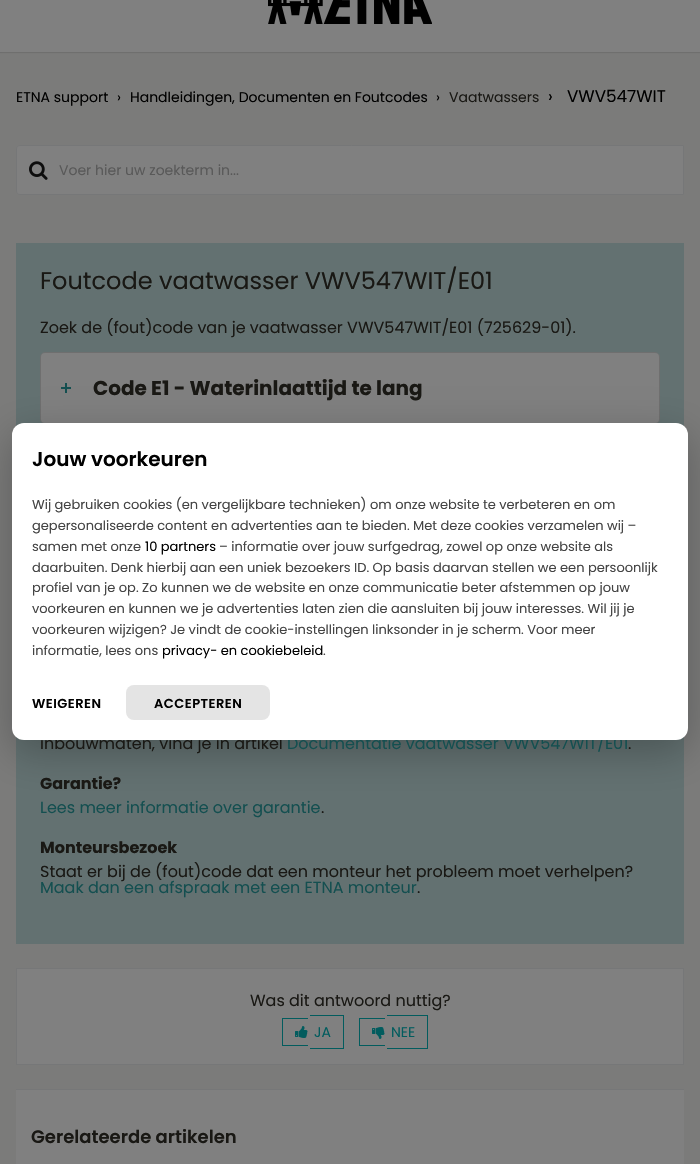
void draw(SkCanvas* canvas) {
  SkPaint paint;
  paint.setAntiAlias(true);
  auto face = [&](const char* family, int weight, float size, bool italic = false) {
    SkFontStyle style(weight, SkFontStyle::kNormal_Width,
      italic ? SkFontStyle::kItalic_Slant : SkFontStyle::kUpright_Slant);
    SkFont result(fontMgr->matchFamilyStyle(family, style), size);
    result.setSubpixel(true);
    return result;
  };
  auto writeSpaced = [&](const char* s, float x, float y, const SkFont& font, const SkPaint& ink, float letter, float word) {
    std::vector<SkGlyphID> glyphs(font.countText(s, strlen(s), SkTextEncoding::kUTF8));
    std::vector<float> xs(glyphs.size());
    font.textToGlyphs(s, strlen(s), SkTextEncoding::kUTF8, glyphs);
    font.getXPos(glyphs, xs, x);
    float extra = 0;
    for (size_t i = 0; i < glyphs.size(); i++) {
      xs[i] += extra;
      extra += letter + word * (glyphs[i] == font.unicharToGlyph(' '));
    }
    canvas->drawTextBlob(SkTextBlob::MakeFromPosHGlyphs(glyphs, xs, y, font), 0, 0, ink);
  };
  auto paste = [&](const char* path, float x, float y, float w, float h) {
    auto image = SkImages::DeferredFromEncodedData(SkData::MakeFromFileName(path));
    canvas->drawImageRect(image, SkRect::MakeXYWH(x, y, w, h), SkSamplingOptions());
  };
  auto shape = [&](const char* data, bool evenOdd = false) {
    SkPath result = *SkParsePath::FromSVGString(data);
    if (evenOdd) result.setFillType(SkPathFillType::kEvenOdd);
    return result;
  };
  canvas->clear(0xff7b7b7a);
  paint.setColor(0x1a000000);
  paint.setMaskFilter(SkMaskFilter::MakeBlur(kNormal_SkBlurStyle, 0.5f));
  canvas->drawRect(SkRect::MakeXYWH(-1, -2, 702, 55), paint);
  paint.setMaskFilter(nullptr);
  paint.setColor(0xff808080);
  canvas->drawRect(SkRect::MakeXYWH(0, 0, 700, 52), paint);
  paste("img/1.png", 268, 0, 164, 24);
  canvas->drawPath(shape("M20 145.5H683.5V194.5H20C18 194.5 16.5 193 16.5 191V149C16.5 147 18 145.5 20 145.5Z"), paint);
  paint.setStroke(true);
  paint.setStrokeWidth(1);
  paint.setColor(0xff767778);
  canvas->drawPath(shape("M20 145.5H683.5V194.5H20C18 194.5 16.5 193 16.5 191V149C16.5 147 18 145.5 20 145.5Z"), paint);
  paste("img/2.png", 29, 161, 19, 19);
  paint.setStroke(false);
  paint.setColor(0xff637171);
  canvas->drawRect(SkRect::MakeXYWH(16, 243, 668, 701), paint);
  paint.setStroke(true);
  paint.setColor(0xff6f6f6f);
  canvas->drawRoundRect(SkRect::MakeXYWH(40.5f, 352.5f, 619, 71), 4.5f, 4.5f, paint);
  paint.setStroke(false);
  paint.setColor(0xff808080);
  canvas->drawRoundRect(SkRect::MakeXYWH(41, 353, 618, 70), 4, 4, paint);
  paint.setColor(0xff144f50);
  canvas->drawRect(SkRect::MakeXYWH(61, 387, 10, 2), paint);
  canvas->drawRect(SkRect::MakeXYWH(65, 383, 2, 10), paint);
  paint.setColor(0xff808080);
  canvas->drawRect(SkRect::MakeXYWH(16.5f, 968.5f, 667, 96), paint);
  paint.setStroke(true);
  paint.setColor(0xff767778);
  canvas->drawRect(SkRect::MakeXYWH(16.5f, 968.5f, 667, 96), paint);
  paint.setStroke(false);
  {
    const struct { float x, y, w, h; SkColor color; } items[] = {
      {282, 1018, 26, 1, 0xff025c5e},
      {282, 1045, 26, 1, 0xff025c5e},
      {282, 1018, 1, 28, 0xff025c5e},
      {310, 1015, 34, 1, 0xff025c5e},
      {343, 1015, 1, 34, 0xff025c5e},
      {310, 1048, 34, 1, 0xff025c5e},
    };
    for (auto [x, y, w, h, color] : items) {
      paint.setColor(color);
      canvas->drawRect(SkRect::MakeXYWH(x, y, w, h), paint);
    }
  }
  paste("img/3.png", 295, 1026, 13, 12);
  {
    const struct { float x, y, w, h; SkColor color; } items[] = {
      {359, 1018, 26, 1, 0xff025c5e},
      {359, 1045, 26, 1, 0xff025c5e},
      {359, 1018, 1, 28, 0xff025c5e},
      {387, 1015, 41, 1, 0xff025c5e},
      {427, 1015, 1, 34, 0xff025c5e},
      {387, 1048, 41, 1, 0xff025c5e},
    };
    for (auto [x, y, w, h, color] : items) {
      paint.setColor(color);
      canvas->drawRect(SkRect::MakeXYWH(x, y, w, h), paint);
    }
  }
  paste("img/4.png", 372, 1027, 13, 12);
  paint.setColor(0xff808080);
  canvas->drawRect(SkRect::MakeXYWH(16, 1090, 668, 74), paint);
  paint.setColor(0xff767778);
  canvas->drawRect(SkRect::MakeXYWH(16, 1089, 668, 1), paint);
  paint.setColor(0x40000000);
  paint.setMaskFilter(SkMaskFilter::MakeBlur(kNormal_SkBlurStyle, 20));
  canvas->drawRoundRect(SkRect::MakeXYWH(12, 435, 676, 317), 12, 12, paint);
  paint.setMaskFilter(nullptr);
  auto f0 = face("Poppins", 400, 14);
  paint.setColor(0xff000000);
  {
    const struct { const char* s; float x, y; } items[] = {
      {"ETNA support", 16, 102},
      {"›", 117, 102},
      {"Handleidingen, Documenten en Foutcodes", 130, 102},
      {"›", 436, 102},
    };
    for (auto [s, x, y] : items) {
      canvas->drawString(s, x, y, f0, paint);
    }
  }
  paint.setColor(0xff191814);
  canvas->drawString("Vaatwassers", 449, 102, f0, paint);
  auto f1 = face("Poppins", 400, 16.75f);
  paint.setColor(0xff000000);
  canvas->drawString("›", 548, 102, f1, paint);
  canvas->drawString("VWV547WIT", 567, 102, f1, paint);
  paint.setColor(0xff595959);
  canvas->drawString("Voer hier uw zoekterm in...", 59, 175, f0, paint);
  auto f2 = face("Poppins", 400, 24);
  paint.setColor(0xff191814);
  canvas->drawString("Foutcode vaatwasser VWV547WIT/E01", 40, 289, f2, paint);
  auto f3 = face("Poppins", 400, 16);
  canvas->drawString("Zoek de (fout)code van je vaatwasser VWV547WIT/E01 (725629-01).", 40, 333, f3, paint);
  auto f4 = face("Poppins", 700, 20);
  canvas->drawString("Code E1 - Waterinlaattijd te lang", 93, 395, f4, paint);
  canvas->drawString("inbouwmaten, vind je in artikel", 40, 749, f3, paint);
  paint.setColor(0xff144f50);
  canvas->drawString("Documentatie vaatwasser VWV547WIT/E01", 287, 749, f3, paint);
  paint.setColor(0xff191814);
  canvas->drawString(".", 628, 749, f3, paint);
  auto f5 = face("Poppins", 700, 16);
  canvas->drawString("Garantie?", 40, 789, f5, paint);
  paint.setColor(0xff144f50);
  canvas->drawString("Lees meer informatie over garantie", 40, 813, f3, paint);
  paint.setColor(0xff191814);
  canvas->drawString(".", 321, 813, f3, paint);
  canvas->drawString("Monteursbezoek", 40, 853, f5, paint);
  canvas->drawString("Staat er bij de (fout)code dat een monteur het probleem moet verhelpen?", 40, 877, f3, paint);
  paint.setColor(0xff144f50);
  canvas->drawString("Maak dan een afspraak met een ETNA monteur", 40, 893, f3, paint);
  paint.setColor(0xff191814);
  canvas->drawString(".", 417, 893, f3, paint);
  canvas->drawString("Was dit antwoord nuttig?", 250, 1006, f3, paint);
  paint.setColor(0xff025c5e);
  canvas->drawString("JA", 314, 1037, f0, paint);
  canvas->drawString("NEE", 391, 1037, f0, paint);
  auto f6 = face("Poppins", 600, 18);
  paint.setColor(0xff191814);
  canvas->drawString("Gerelateerde artikelen", 31, 1143, f6, paint);
  paint.setColor(0xffffffff);
  canvas->drawRoundRect(SkRect::MakeXYWH(12, 423, 676, 317), 12, 12, paint);
  auto f7 = face("Poppins", 600, 20);
  paint.setColor(0xff000000);
  canvas->drawString("Jouw voorkeuren", 32, 466, f7, paint);
  auto f8 = face("Poppins", 400, 13);
  paint.setColor(0xff444444);
  {
    const struct { const char* s; float x, y; } items[] = {
      {"Wij gebruiken cookies (en vergelijkbare technieken) om onze website te verbeteren en om", 32, 509},
      {"gepersonaliseerde content en advertenties aan te bieden. Met deze cookies verzamelen wij –", 32, 530},
      {"samen met onze", 32, 551},
    };
    for (auto [s, x, y] : items) {
      canvas->drawString(s, x, y, f8, paint);
    }
  }
  paint.setColor(0xff000000);
  canvas->drawString("10 partners", 145, 551, f8, paint);
  paint.setColor(0xff444444);
  {
    const struct { const char* s; float x, y; } items[] = {
      {"– informatie over jouw surfgedrag, zowel op onze website als", 219, 551},
      {"daarbuiten. Denk hierbij aan een uniek bezoekers ID. Op basis daarvan stellen we een persoonlijk", 32, 572},
      {"profiel van je op. Zo kunnen we de website en onze communicatie beter afstemmen op jouw", 32, 592},
      {"voorkeuren en kunnen we je advertenties laten zien die aansluiten bij jouw interesses. Wil jij je", 32, 613},
      {"voorkeuren wijzigen? Je vindt de cookie-instellingen linksonder in je scherm. Voor meer", 32, 634},
      {"informatie, lees ons", 32, 655},
    };
    for (auto [s, x, y] : items) {
      canvas->drawString(s, x, y, f8, paint);
    }
  }
  paint.setColor(0xff000000);
  canvas->drawString("privacy- en cookiebeleid", 162, 655, f8, paint);
  paint.setColor(0xff444444);
  canvas->drawString(".", 323, 655, f8, paint);
  auto f9 = face("Poppins", 600, 13);
  paint.setColor(0xff000000);
  writeSpaced("WEIGEREN", 32, 708, f9, paint, 0.5f, 0);
  paint.setColor(0xffe4e4e4);
  canvas->drawRoundRect(SkRect::MakeXYWH(126, 685, 144, 35), 8, 8, paint);
  paint.setColor(0xff000000);
  writeSpaced("ACCEPTEREN", 154, 708, f9, paint, 0.5f, 0);
}
